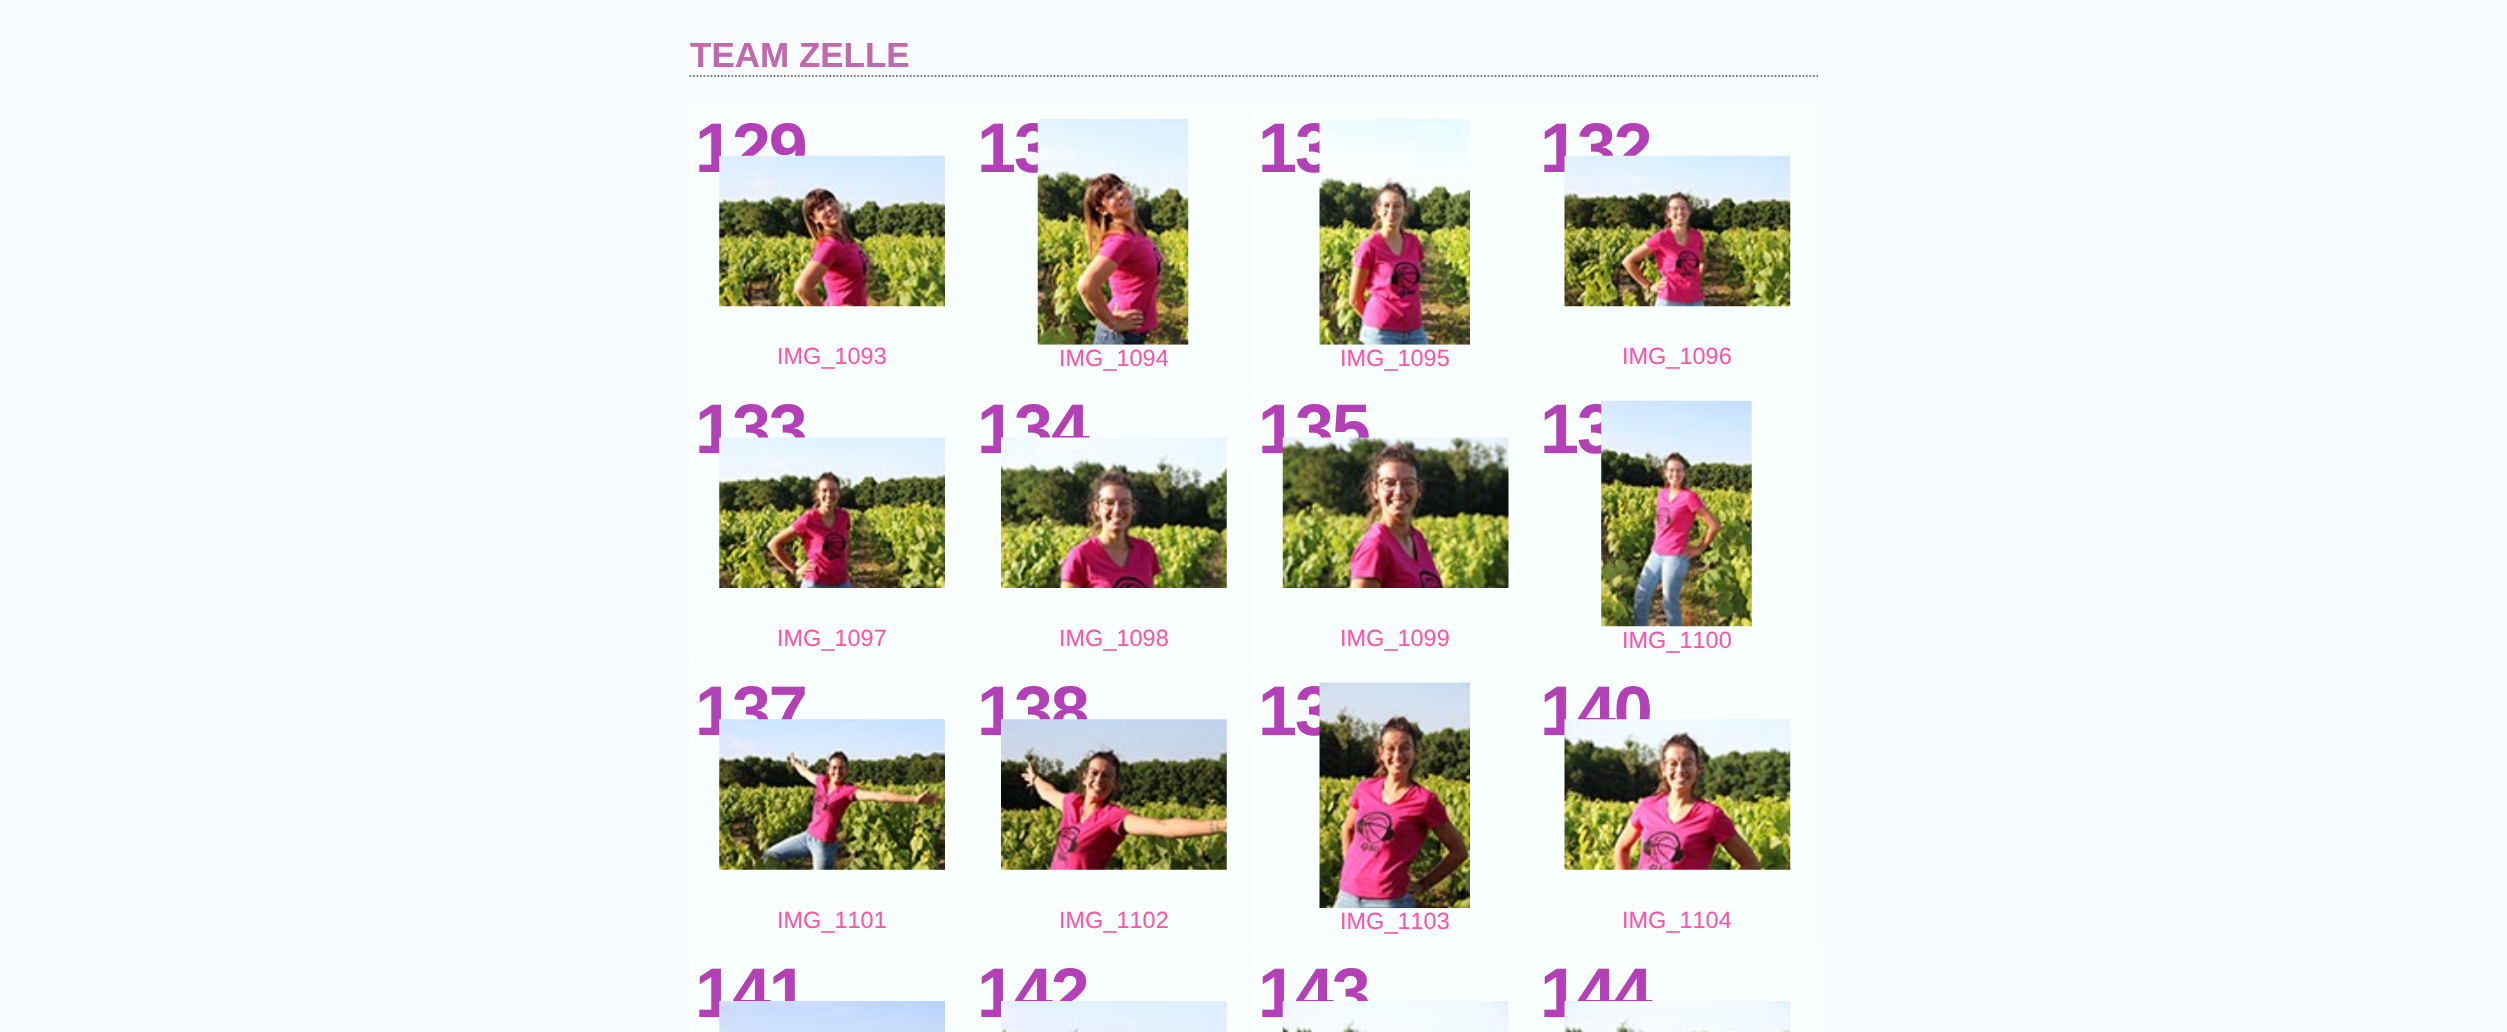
void draw(SkCanvas* canvas) {
  SkPaint paint;
  paint.setAntiAlias(true);
  auto face = [&](const char* family, int weight, float size, bool italic = false) {
    SkFontStyle style(weight, SkFontStyle::kNormal_Width,
      italic ? SkFontStyle::kItalic_Slant : SkFontStyle::kUpright_Slant);
    SkFont result(fontMgr->matchFamilyStyle(family, style), size);
    result.setSubpixel(true);
    return result;
  };
  auto writeSpaced = [&](const char* s, float x, float y, const SkFont& font, const SkPaint& ink, float letter, float word) {
    std::vector<SkGlyphID> glyphs(font.countText(s, strlen(s), SkTextEncoding::kUTF8));
    std::vector<float> xs(glyphs.size());
    font.textToGlyphs(s, strlen(s), SkTextEncoding::kUTF8, glyphs);
    font.getXPos(glyphs, xs, x);
    float extra = 0;
    for (size_t i = 0; i < glyphs.size(); i++) {
      xs[i] += extra;
      extra += letter + word * (glyphs[i] == font.unicharToGlyph(' '));
    }
    canvas->drawTextBlob(SkTextBlob::MakeFromPosHGlyphs(glyphs, xs, y, font), 0, 0, ink);
  };
  auto paste = [&](const char* path, float x, float y, float w, float h) {
    auto image = SkImages::DeferredFromEncodedData(SkData::MakeFromFileName(path));
    canvas->drawImageRect(image, SkRect::MakeXYWH(x, y, w, h), SkSamplingOptions());
  };
  auto shape = [&](const char* data, bool evenOdd = false) {
    SkPath result = *SkParsePath::FromSVGString(data);
    if (evenOdd) result.setFillType(SkPathFillType::kEvenOdd);
    return result;
  };
  canvas->clear(0xfff9fcff);
  paint.setStroke(true);
  paint.setStrokeWidth(1.8f);
  paint.setColor(0xff7f7f7f);
  paint.setPathEffect(SkDashPathEffect::Make({{1.75f, 1.75f}}, 0));
  canvas->drawPath(shape("M689.5 76H1818"), paint);
  paint.setPathEffect(nullptr);
  paint.setStroke(false);
  {
    const struct { float x, y, w, h; SkColor color; } items[] = {
      {692, 105, 279, 280, 0xfff8fffe},
      {690, 103, 1128, 2, 0xffffffff},
      {690, 103, 2, 282, 0xffffffff},
      {973, 105, 280, 280, 0xfff8fffe},
      {971, 103, 2, 282, 0xffffffff},
      {1255, 105, 280, 280, 0xfff8fffe},
      {1253, 103, 2, 282, 0xffffffff},
      {1537, 105, 280, 280, 0xfff8fffe},
      {1817, 103, 2, 282, 0xffffffff},
      {1535, 103, 2, 282, 0xffffffff},
      {692, 387, 279, 280, 0xfff8fffe},
      {690, 385, 1128, 2, 0xffffffff},
      {690, 385, 2, 282, 0xffffffff},
      {973, 387, 280, 280, 0xfff8fffe},
      {971, 385, 2, 282, 0xffffffff},
      {1255, 387, 280, 280, 0xfff8fffe},
      {1253, 385, 2, 282, 0xffffffff},
      {1537, 387, 280, 280, 0xfff8fffe},
      {1817, 385, 2, 282, 0xffffffff},
      {1535, 385, 2, 282, 0xffffffff},
      {692, 669, 279, 280, 0xfff8fffe},
      {690, 667, 1128, 2, 0xffffffff},
      {690, 667, 2, 282, 0xffffffff},
      {973, 669, 280, 280, 0xfff8fffe},
      {971, 667, 2, 282, 0xffffffff},
      {1255, 669, 280, 280, 0xfff8fffe},
      {1253, 667, 2, 282, 0xffffffff},
      {1537, 669, 280, 280, 0xfff8fffe},
      {1817, 667, 2, 282, 0xffffffff},
      {1535, 667, 2, 282, 0xffffffff},
      {692, 951, 279, 81, 0xfff8fffe},
      {690, 949, 845, 2, 0xffffffff},
      {690, 949, 2, 83, 0xffffffff},
      {973, 951, 280, 81, 0xfff8fffe},
      {971, 949, 2, 83, 0xffffffff},
      {1255, 951, 280, 81, 0xfff8fffe},
      {1253, 949, 2, 83, 0xffffffff},
    };
    for (auto [x, y, w, h, color] : items) {
      paint.setColor(color);
      canvas->drawRect(SkRect::MakeXYWH(x, y, w, h), paint);
    }
  }
  paint.setColor(0xfff8fffe);
  canvas->drawRect(SkRect::MakeXYWH(1536, 950, 281, 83), paint);
  paint.setStroke(true);
  paint.setStrokeWidth(2);
  paint.setColor(0xffffffff);
  canvas->drawRect(SkRect::MakeXYWH(1536, 950, 281, 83), paint);
  auto f0 = face("Liberation Sans", 700, 35);
  paint.setStroke(false);
  paint.setColor(0xffc069af);
  canvas->drawString("TEAM ZELLE", 690, 67, f0, paint);
  auto f1 = face("Liberation Sans", 700, 70);
  paint.setColor(0xffb340b6);
  writeSpaced("129", 695, 172, f1, paint, -2, 0);
  paste("img/1.png", 719, 155, 226, 152);
  auto f2 = face("Liberation Sans", 400, 23.5f);
  paint.setColor(0xffff52ab);
  canvas->drawString("IMG_1093", 777, 364, f2, paint);
  paint.setColor(0xffb340b6);
  writeSpaced("13", 977, 172, f1, paint, -2, 0);
  paste("img/2.png", 1037, 119, 152, 226);
  paint.setColor(0xffff52ab);
  canvas->drawString("IMG_1094", 1059, 366, f2, paint);
  paint.setColor(0xffb340b6);
  writeSpaced("13", 1258, 172, f1, paint, -2, 0);
  paste("img/3.png", 1319, 119, 151, 226);
  paint.setColor(0xffff52ab);
  canvas->drawString("IMG_1095", 1340, 366, f2, paint);
  paint.setColor(0xffb340b6);
  writeSpaced("132", 1540, 172, f1, paint, -2, 0);
  paste("img/4.png", 1564, 155, 227, 152);
  paint.setColor(0xffff52ab);
  canvas->drawString("IMG_1096", 1622, 364, f2, paint);
  paint.setColor(0xffb340b6);
  writeSpaced("133", 695, 453, f1, paint, -2, 0);
  paste("img/5.png", 719, 437, 226, 151);
  paint.setColor(0xffff52ab);
  canvas->drawString("IMG_1097", 777, 646, f2, paint);
  paint.setColor(0xffb340b6);
  writeSpaced("134", 977, 453, f1, paint, -2, 0);
  paste("img/6.png", 1001, 437, 226, 151);
  paint.setColor(0xffff52ab);
  canvas->drawString("IMG_1098", 1059, 646, f2, paint);
  paint.setColor(0xffb340b6);
  writeSpaced("135", 1258, 453, f1, paint, -2, 0);
  paste("img/7.png", 1282, 437, 227, 151);
  paint.setColor(0xffff52ab);
  canvas->drawString("IMG_1099", 1340, 646, f2, paint);
  paint.setColor(0xffb340b6);
  writeSpaced("13", 1540, 453, f1, paint, -2, 0);
  paste("img/8.png", 1601, 400, 151, 227);
  paint.setColor(0xffff52ab);
  canvas->drawString("IMG_1100", 1622, 648, f2, paint);
  paint.setColor(0xffb340b6);
  writeSpaced("137", 695, 735, f1, paint, -2, 0);
  paste("img/9.png", 719, 719, 226, 151);
  paint.setColor(0xffff52ab);
  canvas->drawString("IMG_1101", 777, 928, f2, paint);
  paint.setColor(0xffb340b6);
  writeSpaced("138", 977, 735, f1, paint, -2, 0);
  paste("img/10.png", 1001, 719, 226, 151);
  paint.setColor(0xffff52ab);
  canvas->drawString("IMG_1102", 1059, 928, f2, paint);
  paint.setColor(0xffb340b6);
  writeSpaced("13", 1258, 735, f1, paint, -2, 0);
  paste("img/11.png", 1319, 682, 151, 227);
  paint.setColor(0xffff52ab);
  canvas->drawString("IMG_1103", 1340, 929, f2, paint);
  paint.setColor(0xffb340b6);
  writeSpaced("140", 1540, 735, f1, paint, -2, 0);
  paste("img/12.png", 1564, 719, 227, 151);
  paint.setColor(0xffff52ab);
  canvas->drawString("IMG_1104", 1622, 928, f2, paint);
  paint.setColor(0xffb340b6);
  writeSpaced("141", 695, 1017, f1, paint, -2, 0);
  paste("img/13.png", 719, 1001, 226, 31);
  writeSpaced("142", 977, 1017, f1, paint, -2, 0);
  paste("img/14.png", 1001, 1001, 226, 31);
  writeSpaced("143", 1258, 1017, f1, paint, -2, 0);
  paste("img/15.png", 1282, 1001, 227, 31);
  writeSpaced("144", 1540, 1017, f1, paint, -2, 0);
  paste("img/16.png", 1564, 1001, 227, 31);
}
